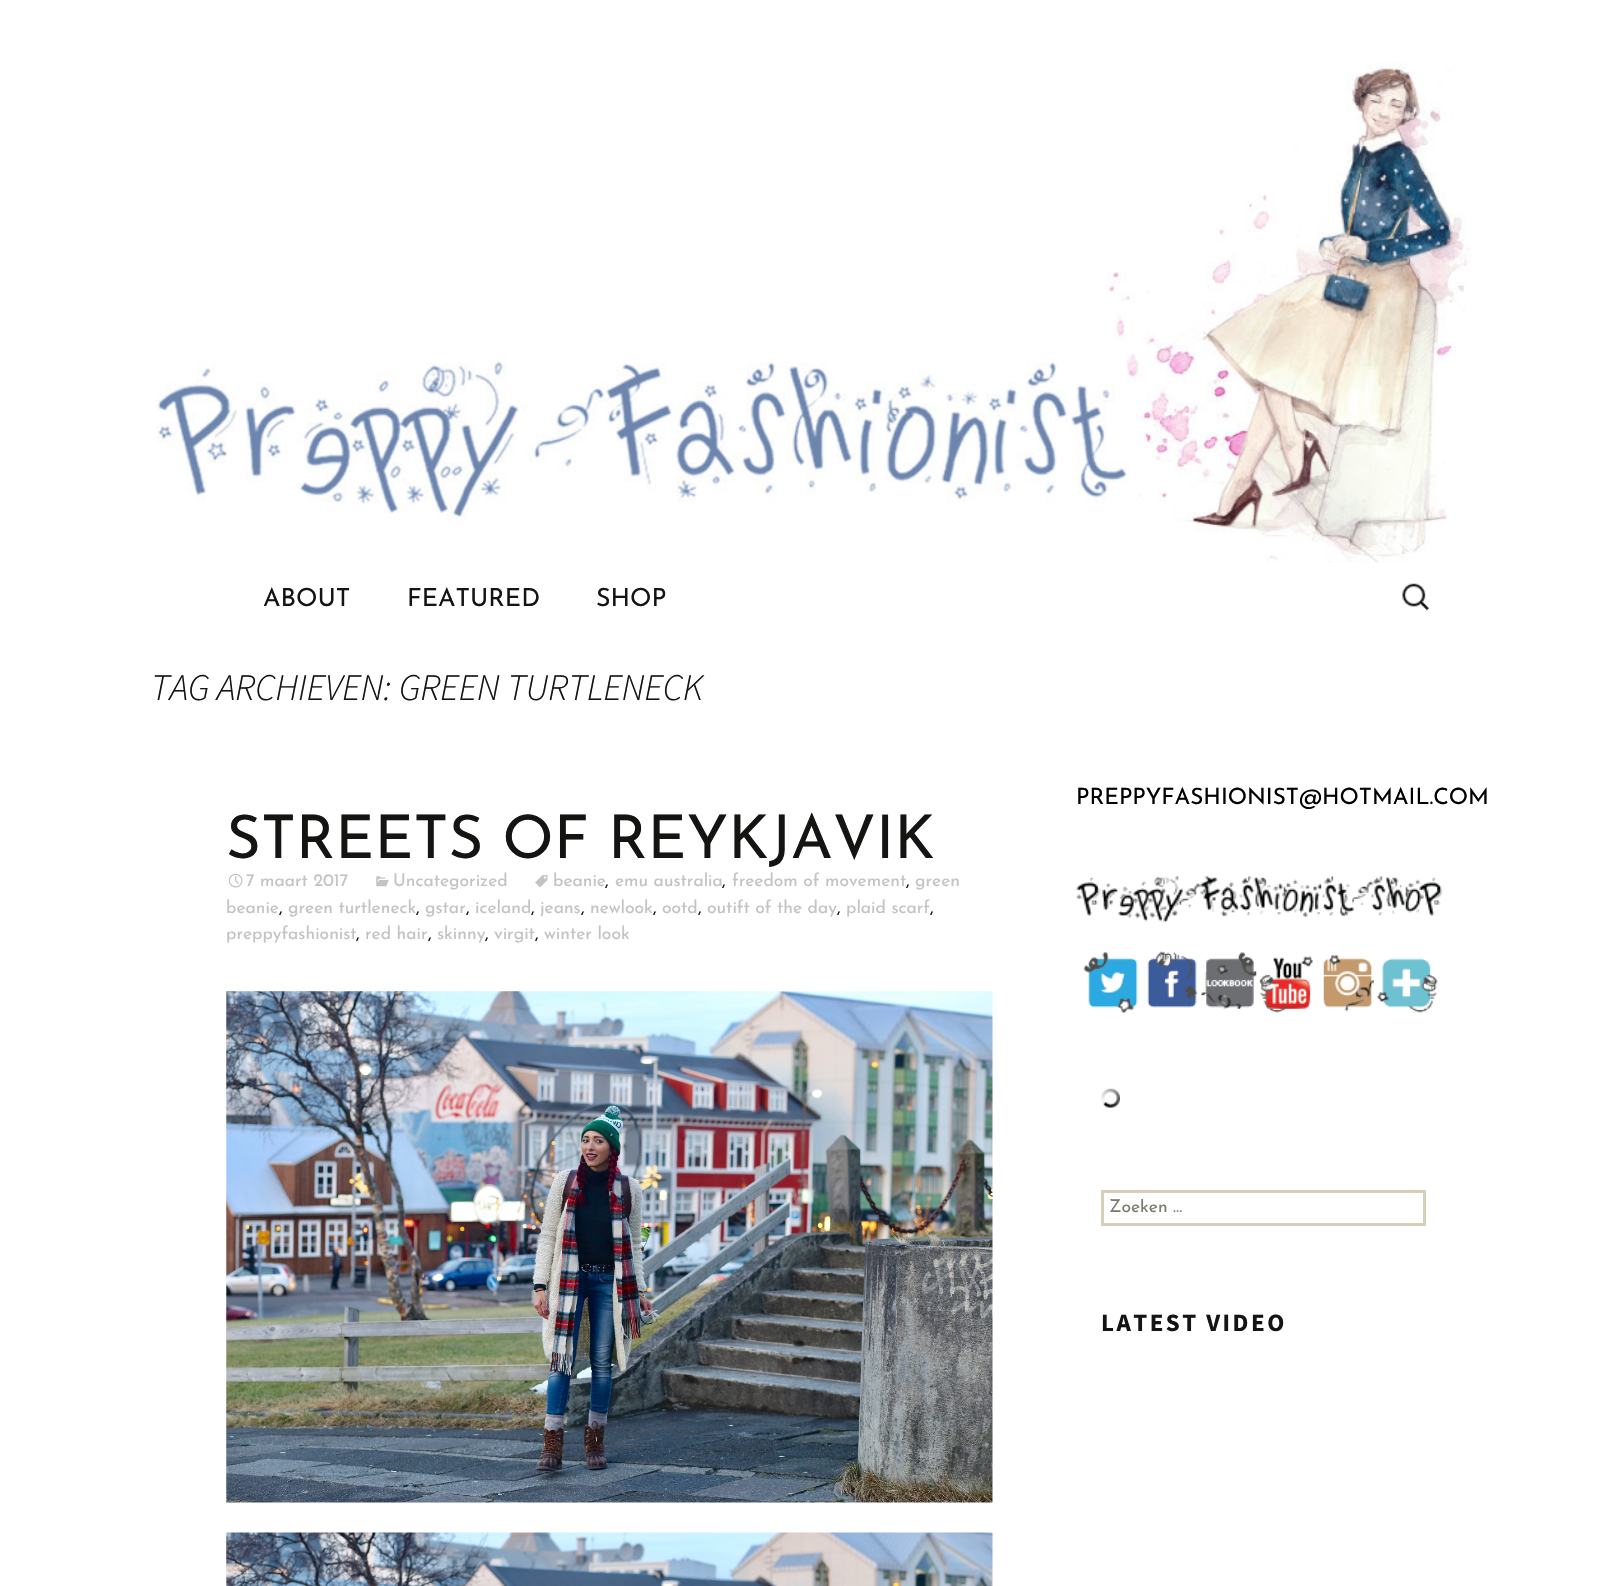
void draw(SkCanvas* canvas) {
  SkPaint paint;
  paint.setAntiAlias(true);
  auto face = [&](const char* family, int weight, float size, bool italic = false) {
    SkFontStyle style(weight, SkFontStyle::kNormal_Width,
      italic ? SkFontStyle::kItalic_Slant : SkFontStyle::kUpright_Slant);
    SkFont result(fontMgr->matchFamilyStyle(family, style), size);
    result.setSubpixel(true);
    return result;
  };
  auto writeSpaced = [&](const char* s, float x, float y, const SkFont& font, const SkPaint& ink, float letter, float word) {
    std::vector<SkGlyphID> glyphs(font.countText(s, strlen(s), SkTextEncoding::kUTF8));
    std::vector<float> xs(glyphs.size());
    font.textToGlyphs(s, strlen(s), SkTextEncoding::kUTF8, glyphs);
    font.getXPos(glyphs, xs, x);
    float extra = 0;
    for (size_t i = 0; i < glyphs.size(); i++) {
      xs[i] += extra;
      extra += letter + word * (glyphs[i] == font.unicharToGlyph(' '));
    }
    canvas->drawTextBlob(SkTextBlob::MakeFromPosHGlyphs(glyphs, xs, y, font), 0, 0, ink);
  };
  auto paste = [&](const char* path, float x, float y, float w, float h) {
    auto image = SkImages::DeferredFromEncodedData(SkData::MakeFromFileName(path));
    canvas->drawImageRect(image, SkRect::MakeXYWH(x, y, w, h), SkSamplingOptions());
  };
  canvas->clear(0xffffffff);
  paste("img/1.png", 156, 62, 1315, 501);
  paste("img/2.png", 1402, 583, 27, 28);
  paste("img/3.png", 535, 875, 13, 13);
  paste("img/4.png", 228, 873, 15, 15);
  paste("img/5.png", 376, 876, 13, 11);
  paste("img/6.png", 226, 991, 767, 512);
  paste("img/7.png", 226, 1532, 767, 54);
  paste("img/8.png", 1076, 876, 367, 47);
  paste("img/9.png", 1083, 952, 55, 61);
  paste("img/10.png", 1147, 951, 51, 57);
  paste("img/11.png", 1197, 952, 62, 57);
  paste("img/12.png", 1256, 956, 57, 57);
  paste("img/13.png", 1323, 954, 54, 58);
  paste("img/14.png", 1373, 958, 65, 55);
  paste("img/15.png", 1101, 1088, 19, 20);
  paint.setStroke(true);
  paint.setStrokeWidth(3);
  paint.setColor(0xffd4d0ba);
  canvas->drawRect(SkRect::MakeXYWH(1102.5f, 1191.5f, 322, 33), paint);
  auto f0 = face("Josefin Sans", 400, 25);
  paint.setStroke(false);
  paint.setColor(0xff141412);
  {
    const struct { const char* s; float x, y; } items[] = {
      {"ABOUT", 263, 606},
      {"FEATURED", 407, 606},
      {"SHOP", 596, 606},
    };
    for (auto [s, x, y] : items) {
      canvas->drawString(s, x, y, f0, paint);
    }
  }
  auto f1 = face("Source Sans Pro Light", 300, 37.5f, true);
  canvas->drawString("TAG ARCHIEVEN: GREEN TURTLENECK", 151, 700, f1, paint);
  auto f2 = face("Josefin Sans", 400, 60);
  canvas->drawString("STREETS OF REYKJAVIK", 226, 858, f2, paint);
  auto f3 = face("Josefin Sans", 400, 17.5f);
  paint.setColor(0xffc3c3c3);
  canvas->drawString("beanie", 553, 886, f3, paint);
  paint.setColor(0xff141412);
  canvas->drawString(",", 605, 886, f3, paint);
  paint.setColor(0xffc3c3c3);
  canvas->drawString("emu australia", 615, 886, f3, paint);
  paint.setColor(0xff141412);
  canvas->drawString(",", 722, 886, f3, paint);
  paint.setColor(0xffc3c3c3);
  canvas->drawString("freedom of movement", 732, 886, f3, paint);
  paint.setColor(0xff141412);
  canvas->drawString(",", 906, 886, f3, paint);
  paint.setColor(0xffc3c3c3);
  canvas->drawString("green", 915, 886, f3, paint);
  canvas->drawString("beanie", 226, 913, f3, paint);
  paint.setColor(0xff141412);
  canvas->drawString(",", 279, 913, f3, paint);
  paint.setColor(0xffc3c3c3);
  canvas->drawString("green turtleneck", 288, 913, f3, paint);
  paint.setColor(0xff141412);
  canvas->drawString(",", 416, 913, f3, paint);
  paint.setColor(0xffc3c3c3);
  canvas->drawString("gstar", 425, 913, f3, paint);
  paint.setColor(0xff141412);
  canvas->drawString(",", 466, 913, f3, paint);
  paint.setColor(0xffc3c3c3);
  canvas->drawString("iceland", 475, 913, f3, paint);
  paint.setColor(0xff141412);
  canvas->drawString(",", 531, 913, f3, paint);
  paint.setColor(0xffc3c3c3);
  canvas->drawString("jeans", 540, 913, f3, paint);
  paint.setColor(0xff141412);
  canvas->drawString(",", 581, 913, f3, paint);
  paint.setColor(0xffc3c3c3);
  canvas->drawString("newlook", 590, 913, f3, paint);
  paint.setColor(0xff141412);
  canvas->drawString(",", 653, 913, f3, paint);
  paint.setColor(0xffc3c3c3);
  canvas->drawString("ootd", 662, 913, f3, paint);
  paint.setColor(0xff141412);
  canvas->drawString(",", 698, 913, f3, paint);
  paint.setColor(0xffc3c3c3);
  canvas->drawString("outift of the day", 707, 913, f3, paint);
  paint.setColor(0xff141412);
  canvas->drawString(",", 837, 913, f3, paint);
  paint.setColor(0xffc3c3c3);
  canvas->drawString("plaid scarf", 846, 913, f3, paint);
  paint.setColor(0xff141412);
  canvas->drawString(",", 930, 913, f3, paint);
  paint.setColor(0xffc3c3c3);
  canvas->drawString("preppyfashionist", 226, 939, f3, paint);
  paint.setColor(0xff141412);
  canvas->drawString(",", 356, 939, f3, paint);
  paint.setColor(0xffc3c3c3);
  canvas->drawString("red hair", 365, 939, f3, paint);
  paint.setColor(0xff141412);
  canvas->drawString(",", 428, 939, f3, paint);
  paint.setColor(0xffc3c3c3);
  canvas->drawString("skinny", 437, 939, f3, paint);
  paint.setColor(0xff141412);
  canvas->drawString(",", 485, 939, f3, paint);
  paint.setColor(0xffc3c3c3);
  canvas->drawString("virgit", 494, 939, f3, paint);
  paint.setColor(0xff141412);
  canvas->drawString(",", 535, 939, f3, paint);
  paint.setColor(0xffc3c3c3);
  {
    const struct { const char* s; float x, y; } items[] = {
      {"winter look", 544, 939},
      {"7 maart 2017", 246, 886},
      {"Uncategorized", 393, 886},
    };
    for (auto [s, x, y] : items) {
      canvas->drawString(s, x, y, f3, paint);
    }
  }
  auto f4 = face("Josefin Sans", 400, 22.5f);
  paint.setColor(0xff000000);
  canvas->drawString("PREPPYFASHIONIST@HOTMAIL.COM", 1076, 804, f4, paint);
  canvas->save();
  canvas->clipRect(SkRect::MakeXYWH(1110, 1199, 294, 19));
  paint.setColor(0xff7d7b6d);
  canvas->drawString("Zoeken …", 1109, 1212, f3, paint);
  canvas->restore();
  auto f5 = face("Source Sans Pro", 700, 25);
  paint.setColor(0xff141412);
  writeSpaced("LATEST VIDEO", 1101, 1331, f5, paint, 2.5f, 0);
}
